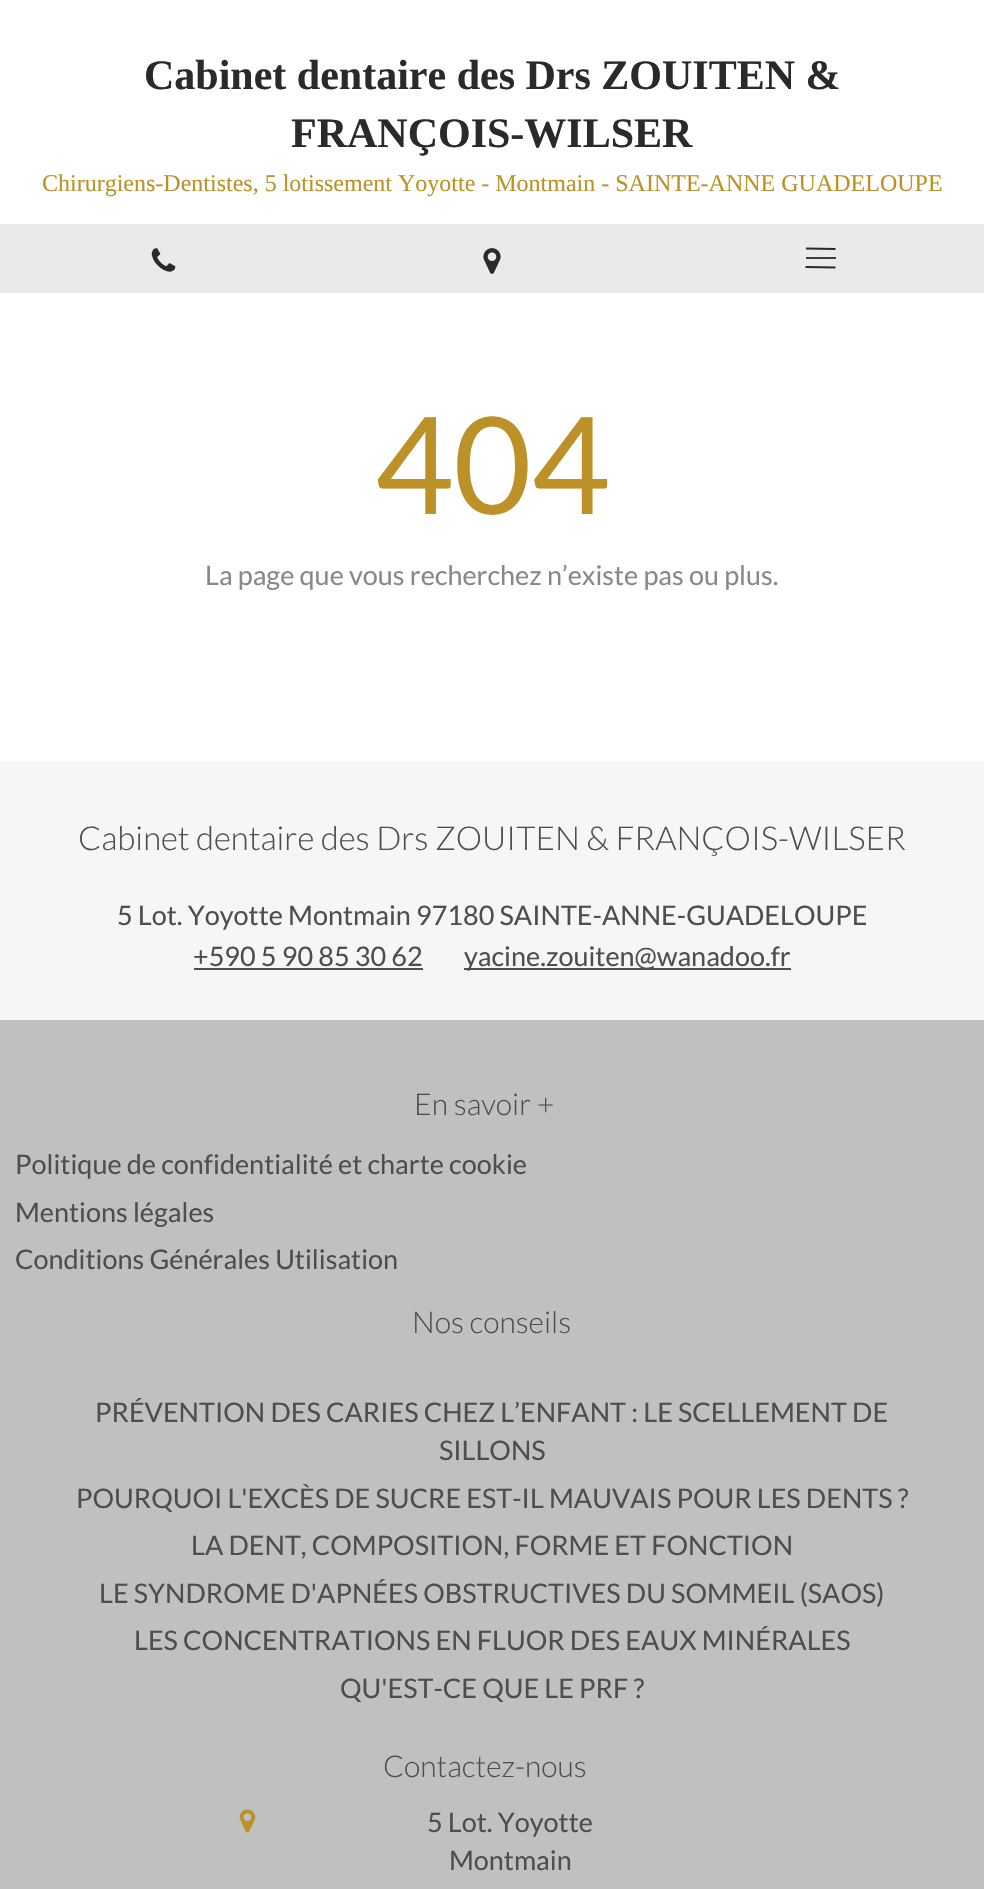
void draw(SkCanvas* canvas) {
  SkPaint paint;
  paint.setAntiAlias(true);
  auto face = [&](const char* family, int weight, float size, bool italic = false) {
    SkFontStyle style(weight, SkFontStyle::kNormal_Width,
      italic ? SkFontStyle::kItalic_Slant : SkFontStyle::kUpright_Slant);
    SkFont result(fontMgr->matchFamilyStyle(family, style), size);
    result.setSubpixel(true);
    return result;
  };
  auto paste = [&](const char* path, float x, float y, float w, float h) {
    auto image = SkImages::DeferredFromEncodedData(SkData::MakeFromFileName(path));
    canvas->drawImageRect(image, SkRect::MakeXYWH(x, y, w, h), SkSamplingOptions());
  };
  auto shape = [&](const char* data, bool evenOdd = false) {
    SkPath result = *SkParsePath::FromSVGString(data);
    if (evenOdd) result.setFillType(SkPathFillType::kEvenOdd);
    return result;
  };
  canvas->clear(0xffffffff);
  paint.setColor(0xffeaeaea);
  canvas->drawRect(SkRect::MakeXYWH(0, 224, 984, 69), paint);
  paste("img/1.png", 151, 248, 25, 24);
  paste("img/2.png", 483, 248, 18, 26);
  canvas->save();
  canvas->clipRect(SkRect::MakeXYWH(806, 243, 30, 30));
  paint.setStroke(true);
  paint.setStrokeWidth(1.8f);
  paint.setColor(0xff2a2a2a);
  canvas->drawPath(shape("M805.5 248.5L835.5 249"), paint);
  canvas->restore();
  paint.setStroke(false);
  paint.setColor(0xff3d3d3d);
  canvas->drawRect(SkRect::MakeXYWH(806, 257, 30, 2), paint);
  paint.setStroke(true);
  paint.setColor(0xff2a2a2a);
  canvas->drawPath(shape("M805.5 267L835.5 267.5"), paint);
  paint.setStroke(false);
  {
    const struct { float x, y, w, h; SkColor color; } items[] = {
      {0, 761, 984, 259, 0xfff6f6f6},
      {194, 968, 229, 2, 0xff4e4e4e},
      {464, 968, 327, 2, 0xff4e4e4e},
      {0, 1020, 984, 869, 0xffc0c0c0},
    };
    for (auto [x, y, w, h, color] : items) {
      paint.setColor(color);
      canvas->drawRect(SkRect::MakeXYWH(x, y, w, h), paint);
    }
  }
  paste("img/3.png", 239, 1809, 17, 24);
  auto f0 = face("Liberation Serif", 700, 42);
  paint.setColor(0xff2a2a2a);
  canvas->drawString("Cabinet dentaire des Drs ZOUITEN &", 144, 89, f0, paint);
  canvas->drawString("FRANÇOIS-WILSER", 291, 147, f0, paint);
  auto f1 = face("Liberation Serif", 400, 24);
  paint.setColor(0xffbc9128);
  canvas->drawString("Chirurgiens-Dentistes, 5 lotissement Yoyotte - Montmain - SAINTE-ANNE GUADELOUPE", 42, 191, f1, paint);
  auto f2 = face("Lato", 400, 135);
  canvas->drawString("404", 375, 514, f2, paint);
  auto f3 = face("Lato", 400, 27);
  paint.setColor(0xff888888);
  canvas->drawString("La page que vous recherchez n’existe pas ou plus.", 205, 585, f3, paint);
  auto f4 = face("Lato", 300, 33);
  paint.setColor(0xff4e4e4e);
  canvas->drawString("Cabinet dentaire des Drs ZOUITEN & FRANÇOIS-WILSER", 78, 850, f4, paint);
  {
    const struct { const char* s; float x, y; } items[] = {
      {"5 Lot. Yoyotte Montmain 97180 SAINTE-ANNE-GUADELOUPE", 117, 925},
      {"+590 5 90 85 30 62", 193, 966},
      {"yacine.zouiten@wanadoo.fr", 464, 966},
    };
    for (auto [s, x, y] : items) {
      canvas->drawString(s, x, y, f3, paint);
    }
  }
  auto f5 = face("Lato", 300, 30);
  canvas->drawString("En savoir +", 414, 1115, f5, paint);
  {
    const struct { const char* s; float x, y; } items[] = {
      {"Politique de confidentialité et charte cookie", 15, 1174},
      {"Mentions légales", 15, 1222},
      {"Conditions Générales Utilisation", 15, 1269},
    };
    for (auto [s, x, y] : items) {
      canvas->drawString(s, x, y, f3, paint);
    }
  }
  canvas->drawString("Nos conseils", 412, 1333, f5, paint);
  {
    const struct { const char* s; float x, y; } items[] = {
      {"PRÉVENTION DES CARIES CHEZ L’ENFANT : LE SCELLEMENT DE", 95, 1422},
      {"SILLONS", 439, 1460},
      {"POURQUOI L'EXCÈS DE SUCRE EST-IL MAUVAIS POUR LES DENTS ?", 76, 1508},
      {"LA DENT, COMPOSITION, FORME ET FONCTION", 191, 1555},
      {"LE SYNDROME D'APNÉES OBSTRUCTIVES DU SOMMEIL (SAOS)", 99, 1603},
      {"LES CONCENTRATIONS EN FLUOR DES EAUX MINÉRALES", 134, 1650},
      {"QU'EST-CE QUE LE PRF ?", 340, 1698},
    };
    for (auto [s, x, y] : items) {
      canvas->drawString(s, x, y, f3, paint);
    }
  }
  canvas->drawString("Contactez-nous", 383, 1777, f5, paint);
  canvas->drawString("5 Lot. Yoyotte", 427, 1832, f3, paint);
  canvas->drawString("Montmain", 449, 1870, f3, paint);
}
